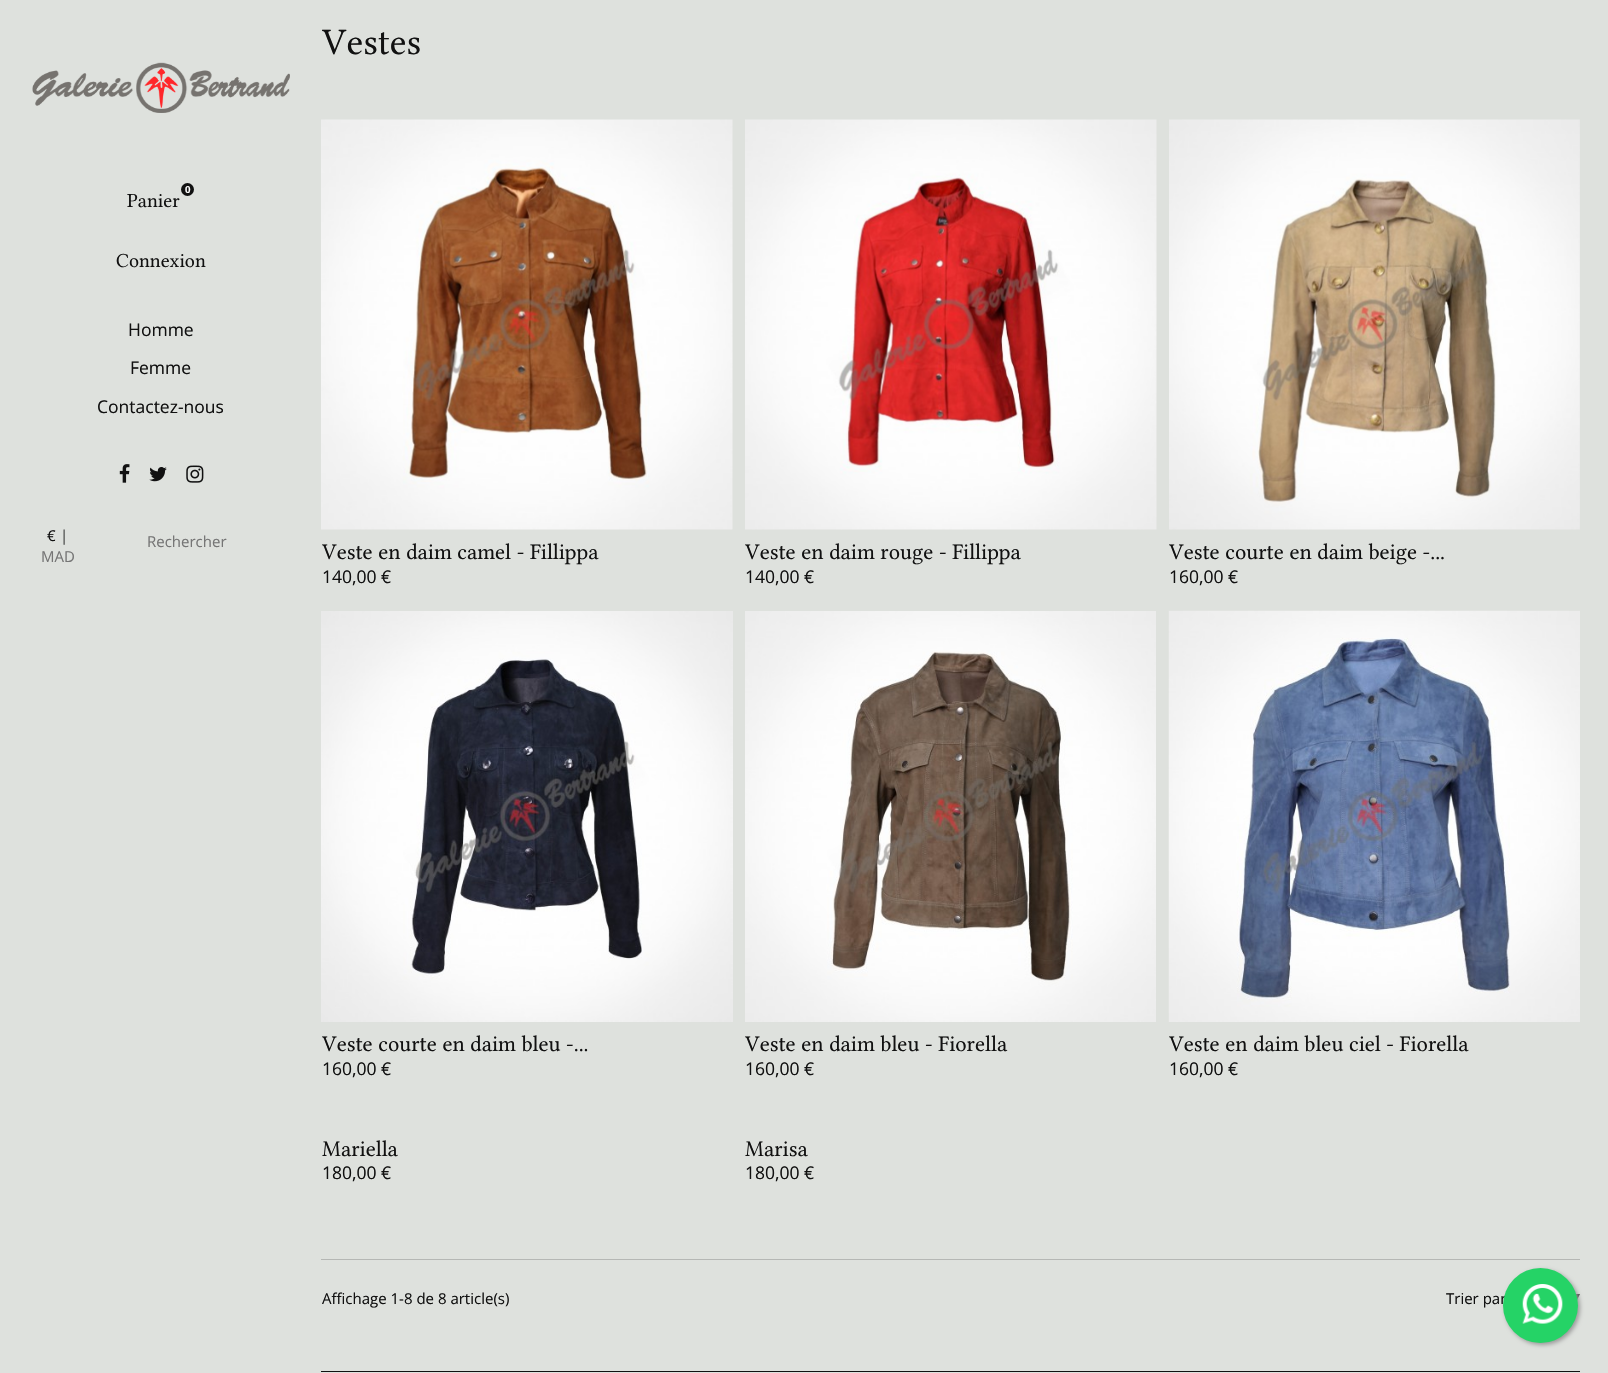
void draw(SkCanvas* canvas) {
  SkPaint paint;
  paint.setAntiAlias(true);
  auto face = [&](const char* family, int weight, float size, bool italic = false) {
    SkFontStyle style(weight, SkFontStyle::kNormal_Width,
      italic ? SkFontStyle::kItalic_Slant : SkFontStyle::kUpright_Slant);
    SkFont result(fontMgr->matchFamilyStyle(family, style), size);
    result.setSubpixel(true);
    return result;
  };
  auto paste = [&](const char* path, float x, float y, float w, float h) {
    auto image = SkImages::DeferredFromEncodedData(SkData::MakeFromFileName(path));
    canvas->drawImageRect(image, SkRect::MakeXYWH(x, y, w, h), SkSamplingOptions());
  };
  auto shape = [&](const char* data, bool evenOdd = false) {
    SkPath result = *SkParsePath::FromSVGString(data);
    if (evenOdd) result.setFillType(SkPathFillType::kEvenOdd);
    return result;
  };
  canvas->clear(0xffdee1dd);
  paste("img/1.png", 32, 62, 258, 51);
  paint.setColor(0xff111111);
  canvas->drawCircle(187.5f, 189.5f, 6.5f, paint);
  paste("img/2.png", 119, 464, 11, 19);
  paste("img/3.png", 149, 467, 18, 15);
  paste("img/4.png", 186, 465, 18, 18);
  paste("img/5.png", 321, 119, 412, 411);
  paste("img/6.png", 745, 119, 412, 411);
  paste("img/7.png", 1169, 119, 411, 411);
  paste("img/8.png", 321, 611, 412, 411);
  paste("img/9.png", 745, 611, 411, 411);
  paste("img/10.png", 1168, 610, 412, 412);
  paint.setColor(0xffb5b7b4);
  canvas->drawRect(SkRect::MakeXYWH(321, 1259, 1259, 1), paint);
  paint.setColor(0xff444544);
  canvas->drawPath(shape("M1570 1294H1580L1575 1304Z"), paint);
  paint.setColor(0xff111111);
  canvas->drawRect(SkRect::MakeXYWH(321, 1371, 1259, 1), paint);
  paint.setColor(0xff999999);
  paint.setMaskFilter(SkMaskFilter::MakeBlur(kNormal_SkBlurStyle, 2));
  canvas->drawRoundRect(SkRect::MakeXYWH(1505, 1270, 75, 75), 37.5f, 37.5f, paint);
  paint.setMaskFilter(nullptr);
  auto f0 = face("Liberation Sans", 700, 10);
  paint.setColor(0xffffffff);
  canvas->drawString("0", 185, 193, f0, paint);
  auto f1 = face("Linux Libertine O", 400, 20);
  paint.setColor(0xff111111);
  canvas->drawString("Panier", 127, 207, f1, paint);
  canvas->drawString("Connexion", 116, 267, f1, paint);
  auto f2 = face("Open Sans", 400, 17.5f);
  {
    const struct { const char* s; float x, y; } items[] = {
      {"Homme", 128, 336},
      {"Femme", 130, 374},
      {"Contactez-nous", 97, 413},
    };
    for (auto [s, x, y] : items) {
      canvas->drawString(s, x, y, f2, paint);
    }
  }
  auto f3 = face("Open Sans", 400, 15);
  canvas->drawString("€", 47, 541, f3, paint);
  paint.setColor(0xff444544);
  canvas->drawString("|", 60, 541, f3, paint);
  paint.setColor(0xff757575);
  canvas->drawString("MAD", 41, 562, f3, paint);
  canvas->drawString("Rechercher", 147, 547, f3, paint);
  auto f4 = face("Linux Libertine O", 400, 37.5f);
  paint.setColor(0xff111111);
  canvas->drawString("Vestes", 322, 54, f4, paint);
  auto f5 = face("Linux Libertine O", 400, 22.5f);
  canvas->drawString("Veste en daim camel - Fillippa", 322, 559, f5, paint);
  canvas->drawString("140,00 €", 322, 583, f2, paint);
  canvas->drawString("Veste en daim rouge - Fillippa", 745, 559, f5, paint);
  canvas->drawString("140,00 €", 745, 583, f2, paint);
  canvas->drawString("Veste courte en daim beige -...", 1169, 559, f5, paint);
  canvas->drawString("160,00 €", 1169, 583, f2, paint);
  canvas->drawString("Veste courte en daim bleu -...", 322, 1051, f5, paint);
  canvas->drawString("160,00 €", 322, 1075, f2, paint);
  canvas->drawString("Veste en daim bleu - Fiorella", 745, 1051, f5, paint);
  canvas->drawString("160,00 €", 745, 1075, f2, paint);
  canvas->drawString("Veste en daim bleu ciel - Fiorella", 1169, 1051, f5, paint);
  canvas->drawString("160,00 €", 1169, 1075, f2, paint);
  canvas->drawString("Mariella", 322, 1156, f5, paint);
  canvas->drawString("180,00 €", 322, 1179, f2, paint);
  canvas->drawString("Marisa", 745, 1156, f5, paint);
  canvas->drawString("180,00 €", 745, 1179, f2, paint);
  canvas->drawString("Affichage 1-8 de 8 article(s)", 322, 1304, f3, paint);
  canvas->drawString("Trier par", 1446, 1304, f3, paint);
  paint.setColor(0xff25d366);
  canvas->drawCircle(1540.5f, 1305.5f, 37.5f, paint);
  paste("img/11.png", 1522, 1284, 41, 40);
}
